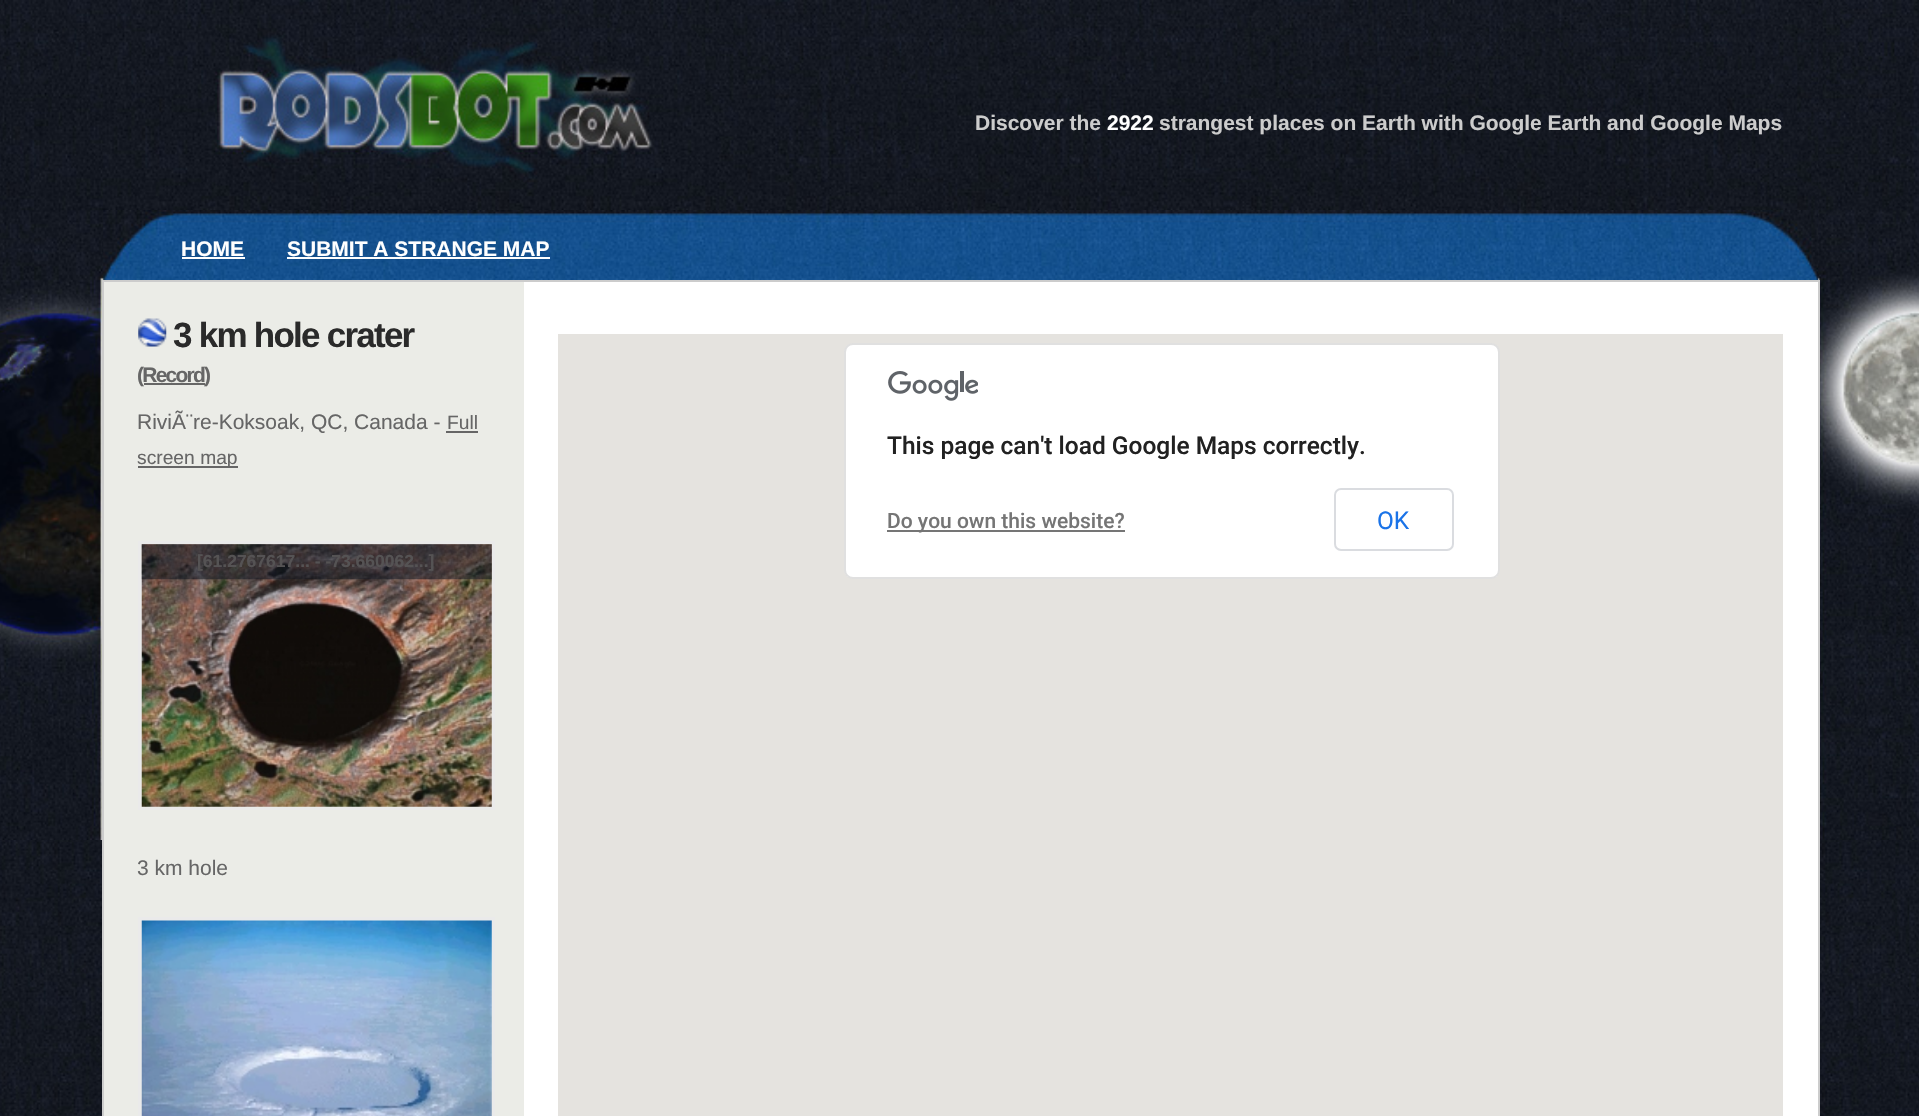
void draw(SkCanvas* canvas) {
  SkPaint paint;
  paint.setAntiAlias(true);
  auto face = [&](const char* family, int weight, float size, bool italic = false) {
    SkFontStyle style(weight, SkFontStyle::kNormal_Width,
      italic ? SkFontStyle::kItalic_Slant : SkFontStyle::kUpright_Slant);
    SkFont result(fontMgr->matchFamilyStyle(family, style), size);
    result.setSubpixel(true);
    return result;
  };
  auto writeSpaced = [&](const char* s, float x, float y, const SkFont& font, const SkPaint& ink, float letter, float word) {
    std::vector<SkGlyphID> glyphs(font.countText(s, strlen(s), SkTextEncoding::kUTF8));
    std::vector<float> xs(glyphs.size());
    font.textToGlyphs(s, strlen(s), SkTextEncoding::kUTF8, glyphs);
    font.getXPos(glyphs, xs, x);
    float extra = 0;
    for (size_t i = 0; i < glyphs.size(); i++) {
      xs[i] += extra;
      extra += letter + word * (glyphs[i] == font.unicharToGlyph(' '));
    }
    canvas->drawTextBlob(SkTextBlob::MakeFromPosHGlyphs(glyphs, xs, y, font), 0, 0, ink);
  };
  auto paste = [&](const char* path, float x, float y, float w, float h) {
    auto image = SkImages::DeferredFromEncodedData(SkData::MakeFromFileName(path));
    canvas->drawImageRect(image, SkRect::MakeXYWH(x, y, w, h), SkSamplingOptions());
  };
  canvas->clear(0xffffffff);
  paste("img/1.png", 0, 840, 1919, 276);
  paste("img/2.png", 0, 0, 1919, 840);
  paste("img/3.png", 103, 0, 1716, 210);
  paste("img/4.png", 103, 210, 1716, 70);
  {
    const struct { float x, y, w, h; SkColor color; } items[] = {
      {182, 257, 63, 2, 0xffffffff},
      {287, 257, 263, 2, 0xffffffff},
      {524, 282, 1294, 834, 0xffffffff},
      {104, 282, 420, 834, 0xffebece7},
    };
    for (auto [x, y, w, h, color] : items) {
      paint.setColor(color);
      canvas->drawRect(SkRect::MakeXYWH(x, y, w, h), paint);
    }
  }
  paint.setStroke(true);
  paint.setStrokeWidth(2);
  paint.setColor(0xffcccccc);
  canvas->drawRect(SkRect::MakeXYWH(103, 281, 1716, 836), paint);
  paste("img/5.png", 138, 318, 29, 29);
  paint.setStroke(false);
  {
    const struct { float x, y, w, h; SkColor color; } items[] = {
      {144, 383, 61, 2, 0xff666666},
      {446, 431, 32, 2, 0xff666666},
      {138, 466, 100, 2, 0xff666666},
    };
    for (auto [x, y, w, h, color] : items) {
      paint.setColor(color);
      canvas->drawRect(SkRect::MakeXYWH(x, y, w, h), paint);
    }
  }
  paint.setStroke(true);
  paint.setStrokeWidth(4);
  paint.setColor(0xffeaeaea);
  canvas->drawRect(SkRect::MakeXYWH(140, 543, 353, 265), paint);
  paste("img/6.png", 141, 544, 351, 263);
  paste("img/7.png", 141, 544, 351, 36);
  canvas->drawRect(SkRect::MakeXYWH(140, 919, 353, 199), paint);
  paste("img/8.png", 141, 920, 351, 196);
  paint.setStroke(false);
  paint.setColor(0xffe5e3df);
  canvas->drawRect(SkRect::MakeXYWH(558, 334, 1225, 782), paint);
  paint.setColor(0xffffffff);
  canvas->drawRoundRect(SkRect::MakeXYWH(844, 343, 656, 236), 9, 9, paint);
  paint.setStroke(true);
  paint.setStrokeWidth(2);
  paint.setColor(0x1f000000);
  canvas->drawRoundRect(SkRect::MakeXYWH(845, 344, 654, 234), 8, 8, paint);
  paste("img/9.png", 888, 371, 90, 30);
  paint.setStroke(false);
  paint.setColor(0xff757575);
  canvas->drawRect(SkRect::MakeXYWH(887, 530, 238, 2), paint);
  paint.setStroke(true);
  paint.setColor(0xffdadce0);
  canvas->drawRoundRect(SkRect::MakeXYWH(1335, 489, 118, 61), 6, 6, paint);
  auto f0 = face("Liberation Sans", 700, 21);
  paint.setStroke(false);
  paint.setColor(0xffcccccc);
  canvas->drawString("Discover the", 975, 130, f0, paint);
  paint.setColor(0xffffffff);
  canvas->drawString("2922", 1107, 130, f0, paint);
  paint.setColor(0xffcccccc);
  canvas->drawString("strangest places on Earth with Google Earth and Google Maps", 1159, 130, f0, paint);
  paint.setColor(0xffffffff);
  canvas->drawString("HOME", 181, 256, f0, paint);
  canvas->drawString("SUBMIT A STRANGE MAP", 287, 256, f0, paint);
  auto f1 = face("Liberation Sans", 700, 35);
  paint.setColor(0xff2a2a2a);
  writeSpaced("3 km hole crater", 173, 347, f1, paint, -1.75f, 0);
  paint.setColor(0xff666666);
  writeSpaced("(Record", 137, 382, f0, paint, -1.75f, 0);
  writeSpaced(")", 204, 382, f0, paint, -1.75f, 0);
  auto f2 = face("Liberation Sans", 400, 21);
  canvas->drawString("RiviÃ¨re-Koksoak, QC, Canada -", 137, 429, f2, paint);
  auto f3 = face("Liberation Sans", 400, 19.25f);
  canvas->drawString("Full", 447, 429, f3, paint);
  canvas->drawString("screen map", 137, 464, f3, paint);
  auto f4 = face("Liberation Sans", 700, 17.5f);
  paint.setColor(0xff555354);
  canvas->drawString("[61.2767617... - -73.660062...]", 197, 567, f4, paint);
  paint.setColor(0xff666666);
  canvas->drawString("3 km hole", 137, 875, f2, paint);
  auto f5 = face("Roboto", 500, 24.5f);
  paint.setColor(0xff212121);
  canvas->drawString("This page can't load Google Maps correctly.", 887, 454, f5, paint);
  auto f6 = face("Roboto", 500, 21);
  paint.setColor(0xff757575);
  canvas->drawString("Do you own this website?", 887, 528, f6, paint);
  auto f7 = face("Roboto", 400, 24.5f);
  paint.setColor(0xff1a73e8);
  canvas->drawString("OK", 1377, 529, f7, paint);
}
